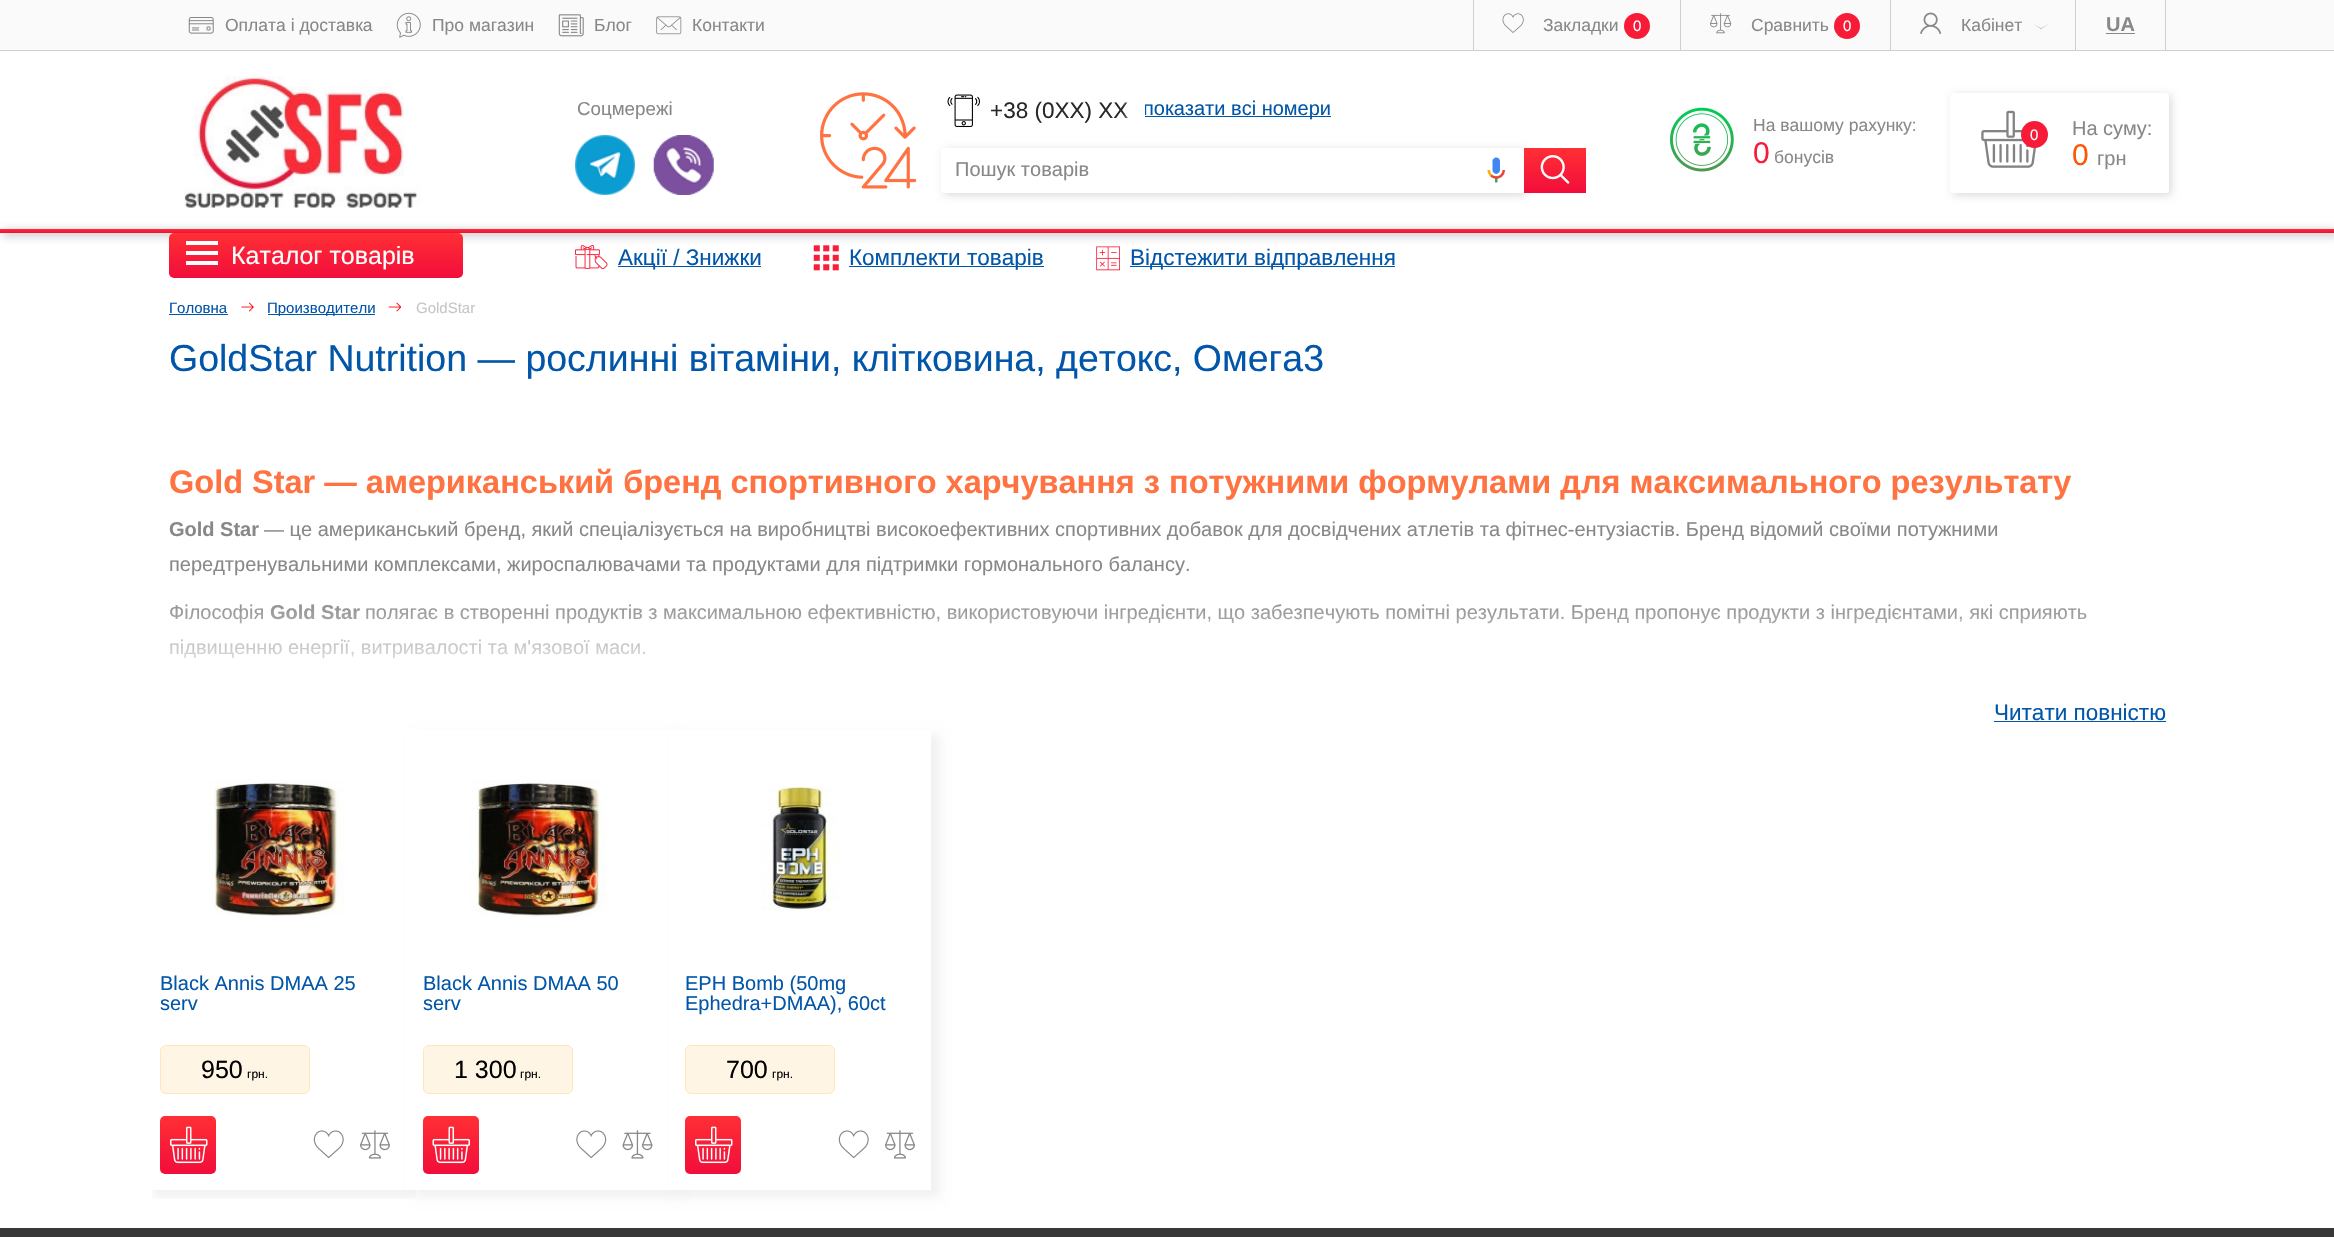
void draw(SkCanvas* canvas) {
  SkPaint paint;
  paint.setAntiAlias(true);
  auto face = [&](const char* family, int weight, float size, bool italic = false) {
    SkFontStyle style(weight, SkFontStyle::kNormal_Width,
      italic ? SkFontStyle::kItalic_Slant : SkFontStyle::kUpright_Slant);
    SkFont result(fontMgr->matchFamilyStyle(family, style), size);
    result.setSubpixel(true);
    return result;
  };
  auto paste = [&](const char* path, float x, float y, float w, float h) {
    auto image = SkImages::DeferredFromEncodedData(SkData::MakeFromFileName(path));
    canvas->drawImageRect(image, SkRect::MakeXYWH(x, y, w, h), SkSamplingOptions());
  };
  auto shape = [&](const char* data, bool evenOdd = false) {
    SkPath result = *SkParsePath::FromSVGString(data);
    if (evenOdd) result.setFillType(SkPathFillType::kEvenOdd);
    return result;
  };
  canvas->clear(0xffffffff);
  paint.setColor(0xfffafafa);
  canvas->drawRect(SkRect::MakeXYWH(0, 0, 2334, 50), paint);
  paint.setColor(0xffd0d0d0);
  canvas->drawRect(SkRect::MakeXYWH(0, 50, 2334, 1), paint);
  paste("img/1.png", 188, 17, 26, 17);
  paste("img/2.png", 396, 12, 25, 26);
  paste("img/3.png", 558, 14, 26, 23);
  paste("img/4.png", 656, 16, 26, 19);
  canvas->drawRect(SkRect::MakeXYWH(1473, 0, 1, 50), paint);
  paste("img/5.png", 1502, 13, 22, 20);
  paint.setColor(0xfff71b38);
  canvas->drawCircle(1637, 26, 13, paint);
  paint.setColor(0xffd0d0d0);
  canvas->drawRect(SkRect::MakeXYWH(1680, 0, 1, 50), paint);
  paste("img/6.png", 1710, 13, 22, 21);
  paint.setColor(0xfff71b38);
  canvas->drawCircle(1847, 26, 13, paint);
  paint.setColor(0xffd0d0d0);
  canvas->drawRect(SkRect::MakeXYWH(1890, 0, 1, 50), paint);
  paste("img/7.png", 1920, 12, 22, 22);
  paint.setColor(0xff888888);
  canvas->drawPath(shape("M2033 23.5L2041 29L2049 23.5L2041 28.5Z"), paint);
  {
    const struct { float x, y, w, h; SkColor color; } items[] = {
      {2165, 0, 1, 50, 0xffd0d0d0},
      {2075, 0, 1, 50, 0xffd0d0d0},
      {2106, 33, 29, 1, 0xff888888},
    };
    for (auto [x, y, w, h, color] : items) {
      paint.setColor(color);
      canvas->drawRect(SkRect::MakeXYWH(x, y, w, h), paint);
    }
  }
  paste("img/8.png", 184, 76, 237, 132);
  paste("img/9.png", 575, 135, 60, 60);
  paste("img/10.png", 653, 135, 61, 60);
  paste("img/11.png", 820, 92, 97, 97);
  paste("img/12.png", 947, 94, 33, 33);
  paint.setColor(0xff0156a9);
  canvas->drawRect(SkRect::MakeXYWH(1144, 116, 187, 1), paint);
  paint.setColor(0x26000000);
  paint.setMaskFilter(SkMaskFilter::MakeBlur(kNormal_SkBlurStyle, 4.5f));
  canvas->drawRoundRect(SkRect::MakeXYWH(944, 150, 582, 45), 2.5f, 2.5f, paint);
  paint.setMaskFilter(nullptr);
  {
    const SkColor colors[] = {0xfff20d3b, 0xffff2f34};
    const float stops[] = {0, 1};
    const SkPoint ends[] = {{1555, 193}, {1555, 148}};
    paint.setShader(SkGradientShader::MakeLinear(ends, colors, stops, 2, SkTileMode::kClamp));
    paint.setAlpha(255);
  }
  canvas->drawRect(SkRect::MakeXYWH(1524, 148, 62, 45), paint);
  paint.setShader(nullptr);
  paint.setColor(0xffffffff);
  canvas->drawRoundRect(SkRect::MakeXYWH(941.5f, 148.5f, 582, 44), 2, 2, paint);
  paint.setStroke(true);
  paint.setStrokeWidth(1);
  canvas->drawRoundRect(SkRect::MakeXYWH(941.5f, 148.5f, 582, 44), 2, 2, paint);
  paste("img/13.png", 1487, 157, 18, 26);
  paste("img/14.png", 1540, 155, 30, 29);
  paste("img/15.png", 1670, 107, 64, 65);
  paint.setStroke(false);
  paint.setColor(0x26000000);
  paint.setMaskFilter(SkMaskFilter::MakeBlur(kNormal_SkBlurStyle, 4.5f));
  canvas->drawRoundRect(SkRect::MakeXYWH(1953, 95, 218, 100), 2.5f, 2.5f, paint);
  paint.setMaskFilter(nullptr);
  paint.setColor(0xffffffff);
  canvas->drawRoundRect(SkRect::MakeXYWH(1950, 93, 219, 100), 2.5f, 2.5f, paint);
  paste("img/16.png", 1981, 110, 56, 58);
  paint.setColor(0xfff71b38);
  canvas->drawCircle(2034.5f, 134.5f, 13.5f, paint);
  paint.setColor(0x59000000);
  paint.setMaskFilter(SkMaskFilter::MakeBlur(kNormal_SkBlurStyle, 4.5f));
  canvas->drawRect(SkRect::MakeXYWH(3, 231, 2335, 4), paint);
  paint.setMaskFilter(nullptr);
  {
    const SkColor colors[] = {0xfff20d3b, 0xffff2f34};
    const float stops[] = {0, 1};
    const SkPoint ends[] = {{1168, 233}, {1168, 229}};
    paint.setShader(SkGradientShader::MakeLinear(ends, colors, stops, 2, SkTileMode::kClamp));
    paint.setAlpha(255);
  }
  canvas->drawRect(SkRect::MakeXYWH(0, 229, 2334, 4), paint);
  {
    const SkColor colors[] = {0xfff20d3b, 0xffff2f34};
    const float stops[] = {0, 1};
    const SkPoint ends[] = {{316, 278}, {316, 233}};
    paint.setShader(SkGradientShader::MakeLinear(ends, colors, stops, 2, SkTileMode::kClamp));
    paint.setAlpha(255);
  }
  canvas->drawRoundRect(SkRect::MakeXYWH(169, 233, 294, 45), 5, 5, paint);
  paint.setShader(nullptr);
  {
    const struct { float x, y, w, h; SkColor color; } items[] = {
      {186, 251, 32, 4, 0xffffffff},
      {186, 241, 32, 4, 0xffffffff},
      {186, 261, 32, 4, 0xffffffff},
    };
    for (auto [x, y, w, h, color] : items) {
      paint.setColor(color);
      canvas->drawRect(SkRect::MakeXYWH(x, y, w, h), paint);
    }
  }
  paste("img/17.png", 575, 245, 33, 24);
  paint.setColor(0xff0156a9);
  canvas->drawRect(SkRect::MakeXYWH(618, 266, 143, 1), paint);
  paste("img/18.png", 813, 245, 26, 26);
  canvas->drawRect(SkRect::MakeXYWH(849, 266, 195, 1), paint);
  paste("img/19.png", 1096, 246, 24, 25);
  canvas->drawRect(SkRect::MakeXYWH(1130, 266, 265, 1), paint);
  canvas->drawRect(SkRect::MakeXYWH(169, 314, 59, 1), paint);
  paste("img/20.png", 241, 302, 13, 10);
  canvas->drawRect(SkRect::MakeXYWH(268, 314, 107, 1), paint);
  paste("img/21.png", 388, 302, 14, 10);
  canvas->drawRect(SkRect::MakeXYWH(1994, 721, 172, 1), paint);
  canvas->save();
  canvas->clipRect(SkRect::MakeXYWH(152, 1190, 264, 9));
  paint.setColor(0x0d000000);
  paint.setMaskFilter(SkMaskFilter::MakeBlur(kNormal_SkBlurStyle, 4.5f));
  canvas->drawRect(SkRect::MakeXYWH(153, 734, 262, 464), paint);
  paint.setMaskFilter(nullptr);
  canvas->restore();
  paste("img/22.png", 209, 779, 135, 137);
  paint.setColor(0xfffff5e5);
  canvas->drawRoundRect(SkRect::MakeXYWH(160.5f, 1045.5f, 149, 48), 5.5f, 5.5f, paint);
  paint.setStroke(true);
  paint.setColor(0xffffe6bf);
  canvas->drawRoundRect(SkRect::MakeXYWH(160.5f, 1045.5f, 149, 48), 5.5f, 5.5f, paint);
  paint.setStroke(false);
  {
    const SkColor colors[] = {0xfff20d3b, 0xffff2f34};
    const float stops[] = {0, 1};
    const SkPoint ends[] = {{188, 1174}, {188, 1116}};
    paint.setShader(SkGradientShader::MakeLinear(ends, colors, stops, 2, SkTileMode::kClamp));
    paint.setAlpha(255);
  }
  canvas->drawRoundRect(SkRect::MakeXYWH(160, 1116, 56, 58), 5, 5, paint);
  paste("img/23.png", 170, 1126, 38, 38);
  paste("img/24.png", 313, 1130, 31, 29);
  paste("img/25.png", 360, 1130, 30, 29);
  paint.setShader(nullptr);
  paint.setColor(0x0d000000);
  paint.setMaskFilter(SkMaskFilter::MakeBlur(kNormal_SkBlurStyle, 4.5f));
  canvas->drawRect(SkRect::MakeXYWH(415, 734, 263, 464), paint);
  paint.setMaskFilter(nullptr);
  paint.setColor(0xffffffff);
  canvas->drawRect(SkRect::MakeXYWH(406, 730, 263, 460), paint);
  paste("img/26.png", 470, 777, 136, 140);
  paint.setColor(0xfffff5e5);
  canvas->drawRoundRect(SkRect::MakeXYWH(423.5f, 1045.5f, 149, 48), 5.5f, 5.5f, paint);
  paint.setStroke(true);
  paint.setColor(0xffffe6bf);
  canvas->drawRoundRect(SkRect::MakeXYWH(423.5f, 1045.5f, 149, 48), 5.5f, 5.5f, paint);
  paint.setStroke(false);
  {
    const SkColor colors[] = {0xfff20d3b, 0xffff2f34};
    const float stops[] = {0, 1};
    const SkPoint ends[] = {{451, 1174}, {451, 1116}};
    paint.setShader(SkGradientShader::MakeLinear(ends, colors, stops, 2, SkTileMode::kClamp));
    paint.setAlpha(255);
  }
  canvas->drawRoundRect(SkRect::MakeXYWH(423, 1116, 56, 58), 5, 5, paint);
  paste("img/27.png", 432, 1126, 38, 38);
  paste("img/28.png", 576, 1130, 31, 29);
  paste("img/29.png", 622, 1130, 31, 29);
  paint.setShader(nullptr);
  paint.setColor(0x0d000000);
  paint.setMaskFilter(SkMaskFilter::MakeBlur(kNormal_SkBlurStyle, 4.5f));
  canvas->drawRect(SkRect::MakeXYWH(678, 734, 262, 464), paint);
  paint.setMaskFilter(nullptr);
  paint.setColor(0xffffffff);
  canvas->drawRect(SkRect::MakeXYWH(669, 730, 262, 460), paint);
  paste("img/30.png", 761, 786, 77, 125);
  paint.setColor(0xfffff5e5);
  canvas->drawRoundRect(SkRect::MakeXYWH(685.5f, 1045.5f, 149, 48), 5.5f, 5.5f, paint);
  paint.setStroke(true);
  paint.setColor(0xffffe6bf);
  canvas->drawRoundRect(SkRect::MakeXYWH(685.5f, 1045.5f, 149, 48), 5.5f, 5.5f, paint);
  paint.setStroke(false);
  {
    const SkColor colors[] = {0xfff20d3b, 0xffff2f34};
    const float stops[] = {0, 1};
    const SkPoint ends[] = {{713, 1174}, {713, 1116}};
    paint.setShader(SkGradientShader::MakeLinear(ends, colors, stops, 2, SkTileMode::kClamp));
    paint.setAlpha(255);
  }
  canvas->drawRoundRect(SkRect::MakeXYWH(685, 1116, 56, 58), 5, 5, paint);
  paste("img/23.png", 695, 1126, 38, 38);
  paste("img/24.png", 838, 1130, 31, 29);
  paste("img/25.png", 885, 1130, 30, 29);
  paint.setShader(nullptr);
  paint.setColor(0xff383838);
  canvas->drawRect(SkRect::MakeXYWH(0, 1228, 2334, 9), paint);
  auto f0 = face("Liberation Sans", 400, 17.5f);
  paint.setColor(0xff888888);
  {
    const struct { const char* s; float x, y; } items[] = {
      {"Оплата і доставка", 225, 31},
      {"Про магазин", 432, 31},
      {"Блог", 594, 31},
      {"Контакти", 692, 31},
      {"Закладки", 1543, 31},
    };
    for (auto [s, x, y] : items) {
      canvas->drawString(s, x, y, f0, paint);
    }
  }
  auto f1 = face("Liberation Sans", 400, 15);
  paint.setColor(0xffffffff);
  canvas->drawString("0", 1633, 31, f1, paint);
  paint.setColor(0xff888888);
  canvas->drawString("Сравнить", 1751, 31, f0, paint);
  paint.setColor(0xffffffff);
  canvas->drawString("0", 1843, 31, f1, paint);
  paint.setColor(0xff888888);
  canvas->drawString("Кабінет", 1961, 31, f0, paint);
  auto f2 = face("Liberation Sans", 700, 20);
  canvas->drawString("UA", 2106, 31, f2, paint);
  auto f3 = face("Liberation Sans", 400, 18.75f);
  canvas->drawString("Соцмережі", 577, 115, f3, paint);
  auto f4 = face("Liberation Sans", 400, 22.5f);
  paint.setColor(0xff282828);
  canvas->drawString("+38 (0XX) XX", 990, 118, f4, paint);
  auto f5 = face("Liberation Sans", 400, 20);
  paint.setColor(0xff0156a9);
  canvas->drawString("показати всі номери", 1143, 115, f5, paint);
  {
    const SkColor colors[] = {0xffffffff, 0xffffffff, 0x80ffffff, 0x03ffffff};
    const float stops[] = {0, 0.4f, 0.7f, 1};
    const SkPoint ends[] = {{1144, 108}, {1123, 108}};
    paint.setShader(SkGradientShader::MakeLinear(ends, colors, stops, 4, SkTileMode::kClamp));
    paint.setAlpha(255);
  }
  canvas->drawRect(SkRect::MakeXYWH(1123, 102, 22, 16), paint);
  paint.setShader(nullptr);
  paint.setColor(0xff888888);
  canvas->drawString("Пошук товарів", 955, 176, f5, paint);
  canvas->drawString("На вашому рахунку:", 1753, 131, f0, paint);
  auto f6 = face("Liberation Sans", 400, 30);
  paint.setColor(0xfff71b38);
  canvas->drawString("0", 1753, 163, f6, paint);
  paint.setColor(0xff888888);
  canvas->drawString("бонусів", 1774, 163, f0, paint);
  paint.setColor(0xffffffff);
  canvas->drawString("0", 2030, 140, f1, paint);
  paint.setColor(0xff888888);
  canvas->drawString("На суму:", 2072, 135, f5, paint);
  paint.setColor(0xffff5400);
  canvas->drawString("0", 2072, 165, f6, paint);
  paint.setColor(0xff888888);
  canvas->drawString("грн", 2097, 165, f5, paint);
  auto f7 = face("Liberation Sans", 400, 25);
  paint.setColor(0xffffffff);
  canvas->drawString("Каталог товарів", 231, 264, f7, paint);
  paint.setColor(0xff0156a9);
  {
    const struct { const char* s; float x, y; } items[] = {
      {"Акції / Знижки", 618, 265},
      {"Комплекти товарів", 849, 265},
      {"Відстежити відправлення", 1130, 265},
    };
    for (auto [s, x, y] : items) {
      canvas->drawString(s, x, y, f4, paint);
    }
  }
  canvas->drawString("Головна", 169, 313, f1, paint);
  canvas->drawString("Производители", 267, 313, f1, paint);
  paint.setColor(0xffc7c7c7);
  canvas->drawString("GoldStar", 416, 313, f1, paint);
  auto f8 = face("Liberation Sans", 400, 37.5f);
  paint.setColor(0xff0156a9);
  canvas->drawString("GoldStar Nutrition — рослинні вітаміни, клітковина, детокс, Омега‑3", 169, 371, f8, paint);
  auto f9 = face("Liberation Sans", 700, 32.5f);
  paint.setColor(0xffff7342);
  canvas->drawString("Gold Star — американський бренд спортивного харчування з потужними формулами для максимального результату", 169, 493, f9, paint);
  paint.setColor(0xff888888);
  canvas->drawString("Gold Star", 169, 536, f2, paint);
  {
    const struct { const char* s; float x, y; } items[] = {
      {"— це американський бренд, який спеціалізується на виробництві високоефективних спортивних добавок для досвідчених атлетів та фітнес-ентузіастів. Бренд відомий своїми потужними", 264, 536},
      {"передтренувальними комплексами, жироспалювачами та продуктами для підтримки гормонального балансу.", 169, 571},
      {"Філософія", 169, 619},
    };
    for (auto [s, x, y] : items) {
      canvas->drawString(s, x, y, f5, paint);
    }
  }
  canvas->drawString("Gold Star", 270, 619, f2, paint);
  canvas->drawString("полягає в створенні продуктів з максимальною ефективністю, використовуючи інгредієнти, що забезпечують помітні результати. Бренд пропонує продукти з інгредієнтами, які сприяють", 365, 619, f5, paint);
  canvas->drawString("підвищенню енергії, витривалості та м'язової маси.", 169, 654, f5, paint);
  {
    const SkColor colors[] = {0x00ffffff, 0xffffffff};
    const float stops[] = {0, 1};
    const SkPoint ends[] = {{1168, 597}, {1168, 688}};
    paint.setShader(SkGradientShader::MakeLinear(ends, colors, stops, 2, SkTileMode::kClamp));
    paint.setAlpha(255);
  }
  canvas->drawRect(SkRect::MakeXYWH(170, 604, 1917, 55), paint);
  paint.setShader(nullptr);
  paint.setColor(0xff0156a9);
  canvas->drawString("Читати повністю", 1994, 720, f4, paint);
  canvas->drawString("Black Annis DMAA 25", 160, 990, f5, paint);
  canvas->drawString("serv", 160, 1010, f5, paint);
  paint.setColor(0xff000000);
  canvas->drawString("950", 201, 1078, f7, paint);
  auto f10 = face("Liberation Sans", 400, 12);
  canvas->drawString("грн.", 247, 1078, f10, paint);
  paint.setColor(0xff0156a9);
  canvas->drawString("Black Annis DMAA 50", 423, 990, f5, paint);
  canvas->drawString("serv", 423, 1010, f5, paint);
  paint.setColor(0xff000000);
  canvas->drawString("1 300", 454, 1078, f7, paint);
  canvas->drawString("грн.", 520, 1078, f10, paint);
  paint.setColor(0xff0156a9);
  canvas->drawString("EPH Bomb (50mg", 685, 990, f5, paint);
  canvas->drawString("Ephedra+DMAA), 60ct", 685, 1010, f5, paint);
  paint.setColor(0xff000000);
  canvas->drawString("700", 726, 1078, f7, paint);
  canvas->drawString("грн.", 772, 1078, f10, paint);
}
